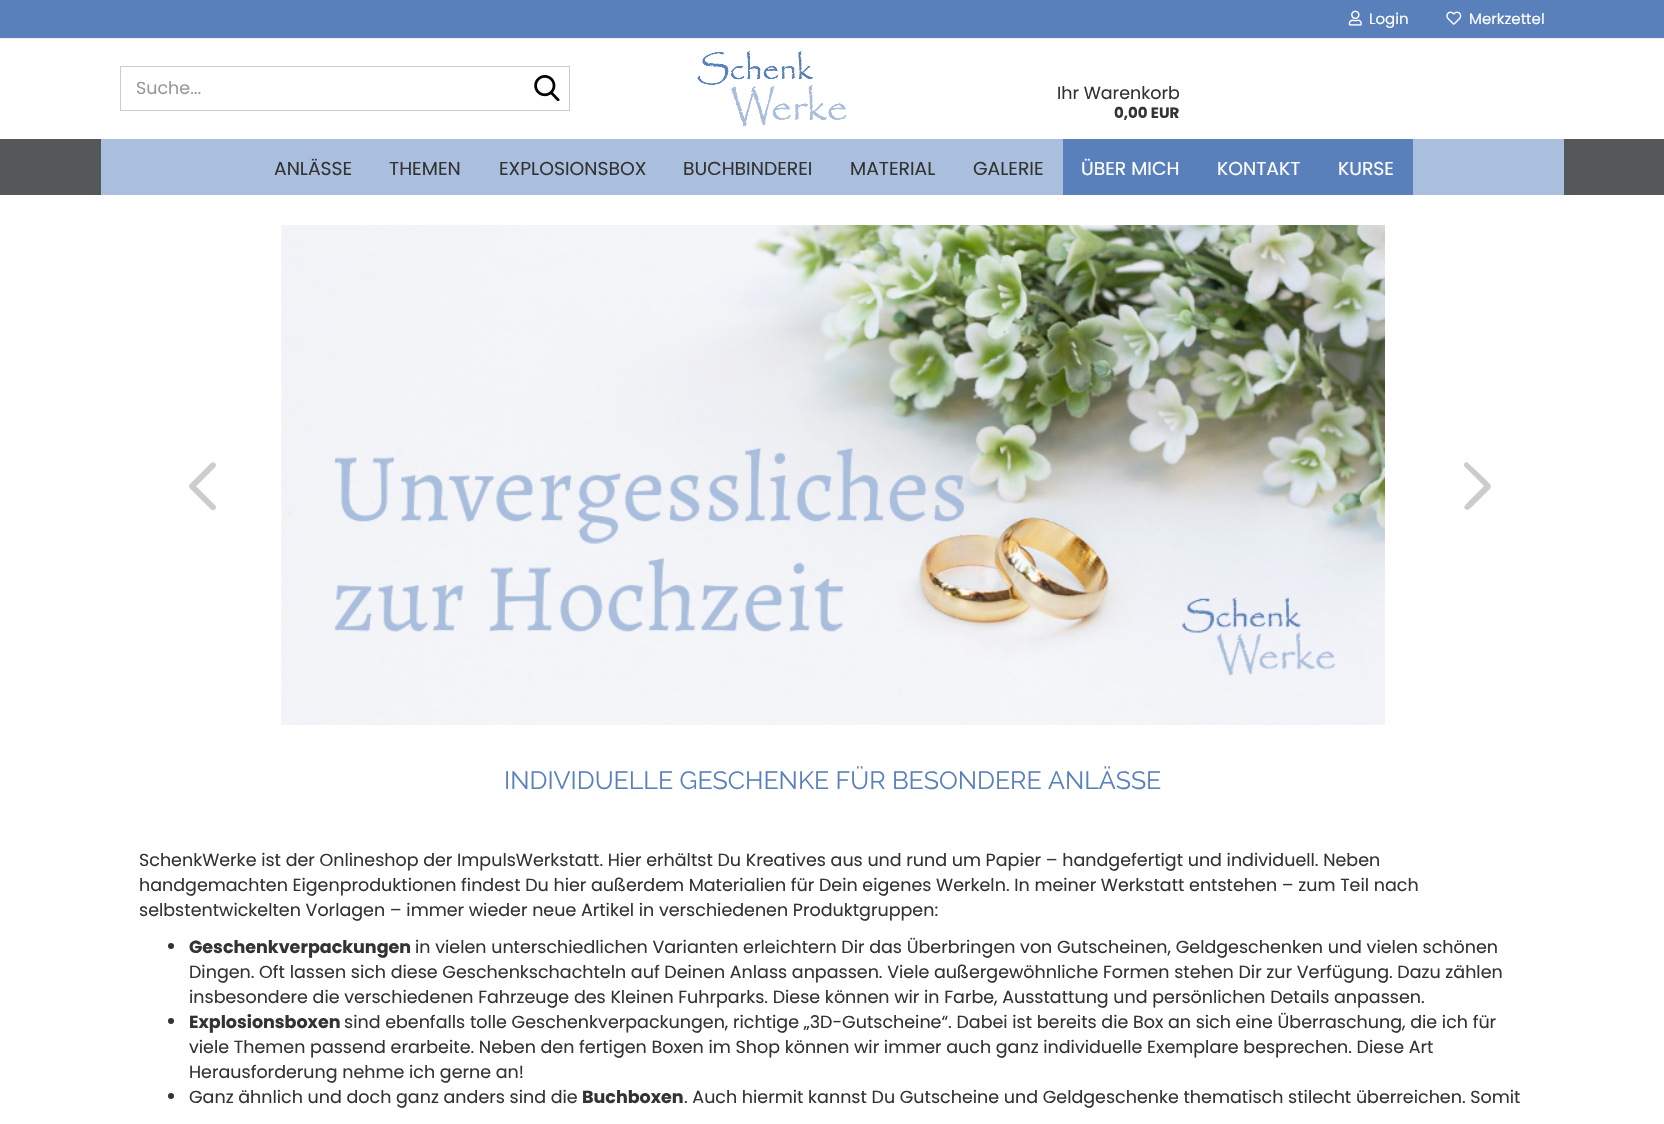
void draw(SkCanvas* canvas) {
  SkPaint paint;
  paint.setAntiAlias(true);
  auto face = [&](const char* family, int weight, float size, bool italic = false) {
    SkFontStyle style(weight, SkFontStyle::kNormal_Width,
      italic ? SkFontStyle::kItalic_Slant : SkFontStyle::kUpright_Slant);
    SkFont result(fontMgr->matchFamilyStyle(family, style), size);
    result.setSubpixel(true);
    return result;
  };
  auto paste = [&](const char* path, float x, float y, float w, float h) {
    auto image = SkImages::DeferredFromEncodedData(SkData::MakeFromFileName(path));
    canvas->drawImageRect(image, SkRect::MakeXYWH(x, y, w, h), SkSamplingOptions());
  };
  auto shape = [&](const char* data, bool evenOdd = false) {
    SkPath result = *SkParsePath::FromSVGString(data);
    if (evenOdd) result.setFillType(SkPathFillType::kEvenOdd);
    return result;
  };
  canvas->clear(0xffffffff);
  paint.setColor(0xff5980bb);
  canvas->drawRect(SkRect::MakeXYWH(0, 0, 1664, 38), paint);
  paint.setColor(0xffeeeeee);
  canvas->drawRect(SkRect::MakeXYWH(0, 38, 1664, 1), paint);
  paste("img/1.png", 1348, 10, 14, 16);
  paste("img/2.png", 1446, 11, 16, 14);
  paint.setStroke(true);
  paint.setStrokeWidth(1);
  paint.setColor(0xffcccccc);
  canvas->drawRect(SkRect::MakeXYWH(120.5f, 66.5f, 449, 44), paint);
  paste("img/3.png", 534, 75, 26, 26);
  paste("img/4.png", 697, 51, 150, 76);
  paint.setStroke(false);
  {
    const struct { float x, y, w, h; SkColor color; } items[] = {
      {0, 139, 1664, 56, 0xff54585b},
      {101, 139, 1463, 56, 0xffaabedd},
      {1063, 139, 350, 56, 0xff5980bb},
    };
    for (auto [x, y, w, h, color] : items) {
      paint.setColor(color);
      canvas->drawRect(SkRect::MakeXYWH(x, y, w, h), paint);
    }
  }
  paste("img/5.png", 189, 462, 27, 49);
  paste("img/6.png", 281, 225, 1104, 500);
  paint.setColor(0xffcccccc);
  canvas->drawPath(shape("M1467 510L1465 509C1463 506 1467 504 1468 502L1484 486L1464 466C1463 464 1466 461 1468 463L1483 477C1495 489 1493 485 1480 499C1477 501 1470 510 1467 510Z"), paint);
  paint.setColor(0xff333333);
  canvas->drawCircle(171, 946, 3, paint);
  canvas->drawCircle(171, 1021, 3, paint);
  canvas->drawCircle(171, 1096, 3, paint);
  auto f0 = face("Poppins", 400, 15);
  paint.setColor(0xffffffff);
  canvas->drawString("Login", 1369, 24, f0, paint);
  canvas->drawString("Merkzettel", 1469, 24, f0, paint);
  auto f1 = face("Poppins", 400, 17.5f);
  paint.setColor(0xff999999);
  canvas->drawString("Suche...", 136, 94, f1, paint);
  paint.setColor(0xff333333);
  canvas->drawString("Ihr Warenkorb", 1057, 99, f1, paint);
  auto f2 = face("Poppins", 700, 15);
  canvas->drawString("0,00 EUR", 1114, 118, f2, paint);
  auto f3 = face("Poppins", 400, 18.75f);
  {
    const struct { const char* s; float x, y; } items[] = {
      {"ANLÄSSE", 274, 175},
      {"THEMEN", 389, 175},
      {"EXPLOSIONSBOX", 499, 175},
      {"BUCHBINDEREI", 683, 175},
      {"MATERIAL", 850, 175},
      {"GALERIE", 973, 175},
    };
    for (auto [s, x, y] : items) {
      canvas->drawString(s, x, y, f3, paint);
    }
  }
  paint.setColor(0xffffffff);
  {
    const struct { const char* s; float x, y; } items[] = {
      {"ÜBER MICH", 1081, 175},
      {"KONTAKT", 1217, 175},
      {"KURSE", 1338, 175},
    };
    for (auto [s, x, y] : items) {
      canvas->drawString(s, x, y, f3, paint);
    }
  }
  auto f4 = face("Raleway", 400, 25);
  paint.setColor(0xff5980bb);
  canvas->drawString("INDIVIDUELLE GESCHENKE FÜR BESONDERE ANLÄSSE", 504, 789, f4, paint);
  paint.setColor(0xff333333);
  {
    const struct { const char* s; float x, y; } items[] = {
      {"SchenkWerke ist der Onlineshop der ImpulsWerkstatt. Hier erhältst Du Kreatives aus und rund um Papier – handgefertigt und individuell. Neben", 139, 866},
      {"handgemachten Eigenproduktionen findest Du hier außerdem Materialien für Dein eigenes Werkeln. In meiner Werkstatt entstehen – zum Teil nach", 139, 891},
      {"selbstentwickelten Vorlagen – immer wieder neue Artikel in verschiedenen Produktgruppen:", 139, 916},
    };
    for (auto [s, x, y] : items) {
      canvas->drawString(s, x, y, f1, paint);
    }
  }
  auto f5 = face("Poppins", 700, 17.5f);
  canvas->drawString("Geschenkverpackungen", 189, 953, f5, paint);
  {
    const struct { const char* s; float x, y; } items[] = {
      {"in vielen unterschiedlichen Varianten erleichtern Dir das Überbringen von Gutscheinen, Geldgeschenken und vielen schönen", 415, 953},
      {"Dingen. Oft lassen sich diese Geschenkschachteln auf Deinen Anlass anpassen. Viele außergewöhnliche Formen stehen Dir zur Verfügung. Dazu zählen", 189, 978},
      {"insbesondere die verschiedenen Fahrzeuge des Kleinen Fuhrparks. Diese können wir in Farbe, Ausstattung und persönlichen Details anpassen.", 189, 1003},
    };
    for (auto [s, x, y] : items) {
      canvas->drawString(s, x, y, f1, paint);
    }
  }
  canvas->drawString("Explosionsboxen", 189, 1028, f5, paint);
  {
    const struct { const char* s; float x, y; } items[] = {
      {"sind ebenfalls tolle Geschenkverpackungen, richtige „3D-Gutscheine“. Dabei ist bereits die Box an sich eine Überraschung, die ich für", 344, 1028},
      {"viele Themen passend erarbeite. Neben den fertigen Boxen im Shop können wir immer auch ganz individuelle Exemplare besprechen. Diese Art", 189, 1053},
      {"Herausforderung nehme ich gerne an!", 189, 1078},
      {"Ganz ähnlich und doch ganz anders sind die", 189, 1103},
    };
    for (auto [s, x, y] : items) {
      canvas->drawString(s, x, y, f1, paint);
    }
  }
  canvas->drawString("Buchboxen", 582, 1103, f5, paint);
  canvas->drawString(". Auch hiermit kannst Du Gutscheine und Geldgeschenke thematisch stilecht überreichen. Somit", 684, 1103, f1, paint);
}
